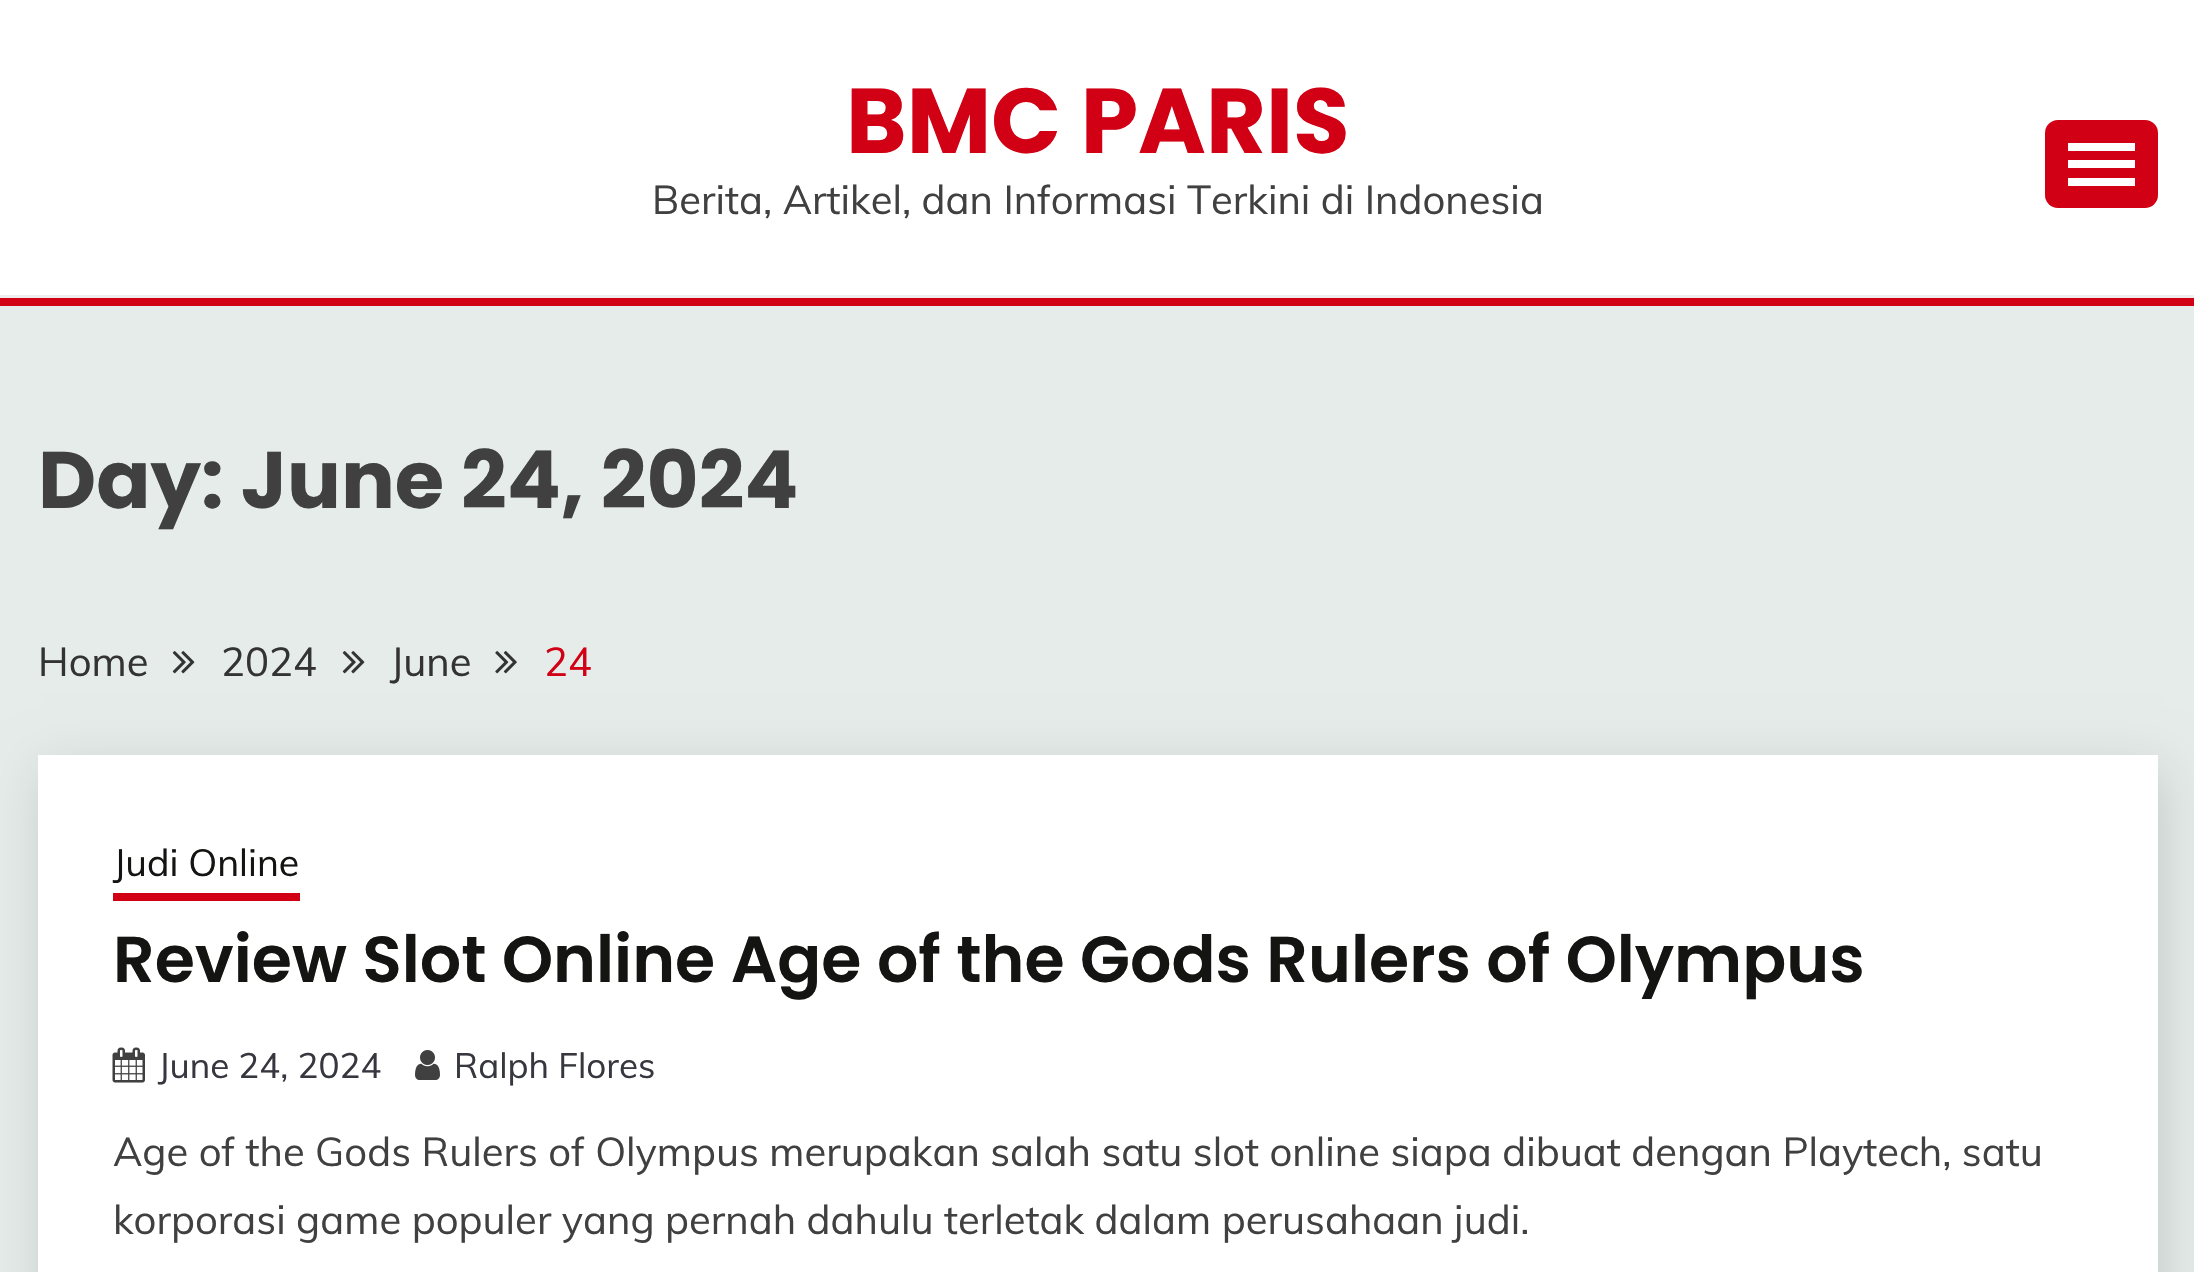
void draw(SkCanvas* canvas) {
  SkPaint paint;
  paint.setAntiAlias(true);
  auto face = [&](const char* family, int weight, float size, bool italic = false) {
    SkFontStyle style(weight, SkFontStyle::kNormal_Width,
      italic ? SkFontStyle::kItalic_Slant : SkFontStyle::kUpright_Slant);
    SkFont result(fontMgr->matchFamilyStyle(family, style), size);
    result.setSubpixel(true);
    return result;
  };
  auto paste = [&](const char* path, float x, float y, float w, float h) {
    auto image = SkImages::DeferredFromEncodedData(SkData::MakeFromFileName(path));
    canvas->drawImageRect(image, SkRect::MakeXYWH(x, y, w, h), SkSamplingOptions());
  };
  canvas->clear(0xffe5ece9);
  paint.setColor(0xffffffff);
  canvas->drawRect(SkRect::MakeXYWH(0, 0, 2194, 295), paint);
  paint.setColor(0xffeeeeee);
  canvas->drawRect(SkRect::MakeXYWH(0, 295, 2194, 3), paint);
  paint.setColor(0xffd10014);
  canvas->drawRoundRect(SkRect::MakeXYWH(2045, 120, 113, 88), 13, 13, paint);
  {
    const struct { float x, y, w, h; SkColor color; } items[] = {
      {2068, 143, 67, 8, 0xffffffff},
      {2068, 160, 67, 8, 0xffffffff},
      {2068, 178, 67, 8, 0xffffffff},
      {0, 298, 2194, 8, 0xffd10014},
    };
    for (auto [x, y, w, h, color] : items) {
      paint.setColor(color);
      canvas->drawRect(SkRect::MakeXYWH(x, y, w, h), paint);
    }
  }
  paste("img/1.png", 172, 651, 23, 23);
  paste("img/1.png", 342, 651, 23, 23);
  paste("img/2.png", 495, 651, 22, 23);
  paint.setColor(0x24000000);
  paint.setMaskFilter(SkMaskFilter::MakeBlur(kNormal_SkBlurStyle, 25));
  canvas->drawRect(SkRect::MakeXYWH(43, 768, 2120, 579), paint);
  paint.setMaskFilter(nullptr);
  paint.setColor(0xffffffff);
  canvas->drawRect(SkRect::MakeXYWH(38, 755, 2120, 517), paint);
  paint.setColor(0xffd10014);
  canvas->drawRect(SkRect::MakeXYWH(113, 893, 187, 8), paint);
  paste("img/3.png", 112, 1047, 33, 36);
  paste("img/4.png", 415, 1050, 25, 30);
  auto f0 = face("Poppins", 700, 92);
  canvas->drawString("BMC PARIS", 846, 153, f0, paint);
  auto f1 = face("Muli", 400, 40);
  paint.setColor(0xff404040);
  canvas->drawString("Berita, Artikel, dan Informasi Terkini di Indonesia", 652, 214, f1, paint);
  auto f2 = face("Poppins", 700, 80);
  canvas->drawString("Day: June 24, 2024", 38, 508, f2, paint);
  paint.setColor(0xff333333);
  {
    const struct { const char* s; float x, y; } items[] = {
      {"Home", 38, 676},
      {"2024", 221, 676},
      {"June", 390, 676},
    };
    for (auto [s, x, y] : items) {
      canvas->drawString(s, x, y, f1, paint);
    }
  }
  paint.setColor(0xffd10014);
  canvas->drawString("24", 544, 676, f1, paint);
  auto f3 = face("Muli", 400, 37.5f);
  paint.setColor(0xff141413);
  canvas->drawString("Judi Online", 113, 876, f3, paint);
  auto f4 = face("Poppins", 600, 65);
  canvas->drawString("Review Slot Online Age of the Gods Rulers of Olympus", 113, 982, f4, paint);
  auto f5 = face("Muli", 400, 35);
  paint.setColor(0xff37373f);
  canvas->drawString("June 24, 2024", 158, 1078, f5, paint);
  canvas->drawString("Ralph Flores", 454, 1078, f5, paint);
  paint.setColor(0xff404040);
  canvas->drawString("Age of the Gods Rulers of Olympus merupakan salah satu slot online siapa dibuat dengan Playtech, satu", 113, 1166, f1, paint);
  canvas->drawString("korporasi game populer yang pernah dahulu terletak dalam perusahaan judi.", 113, 1234, f1, paint);
}
